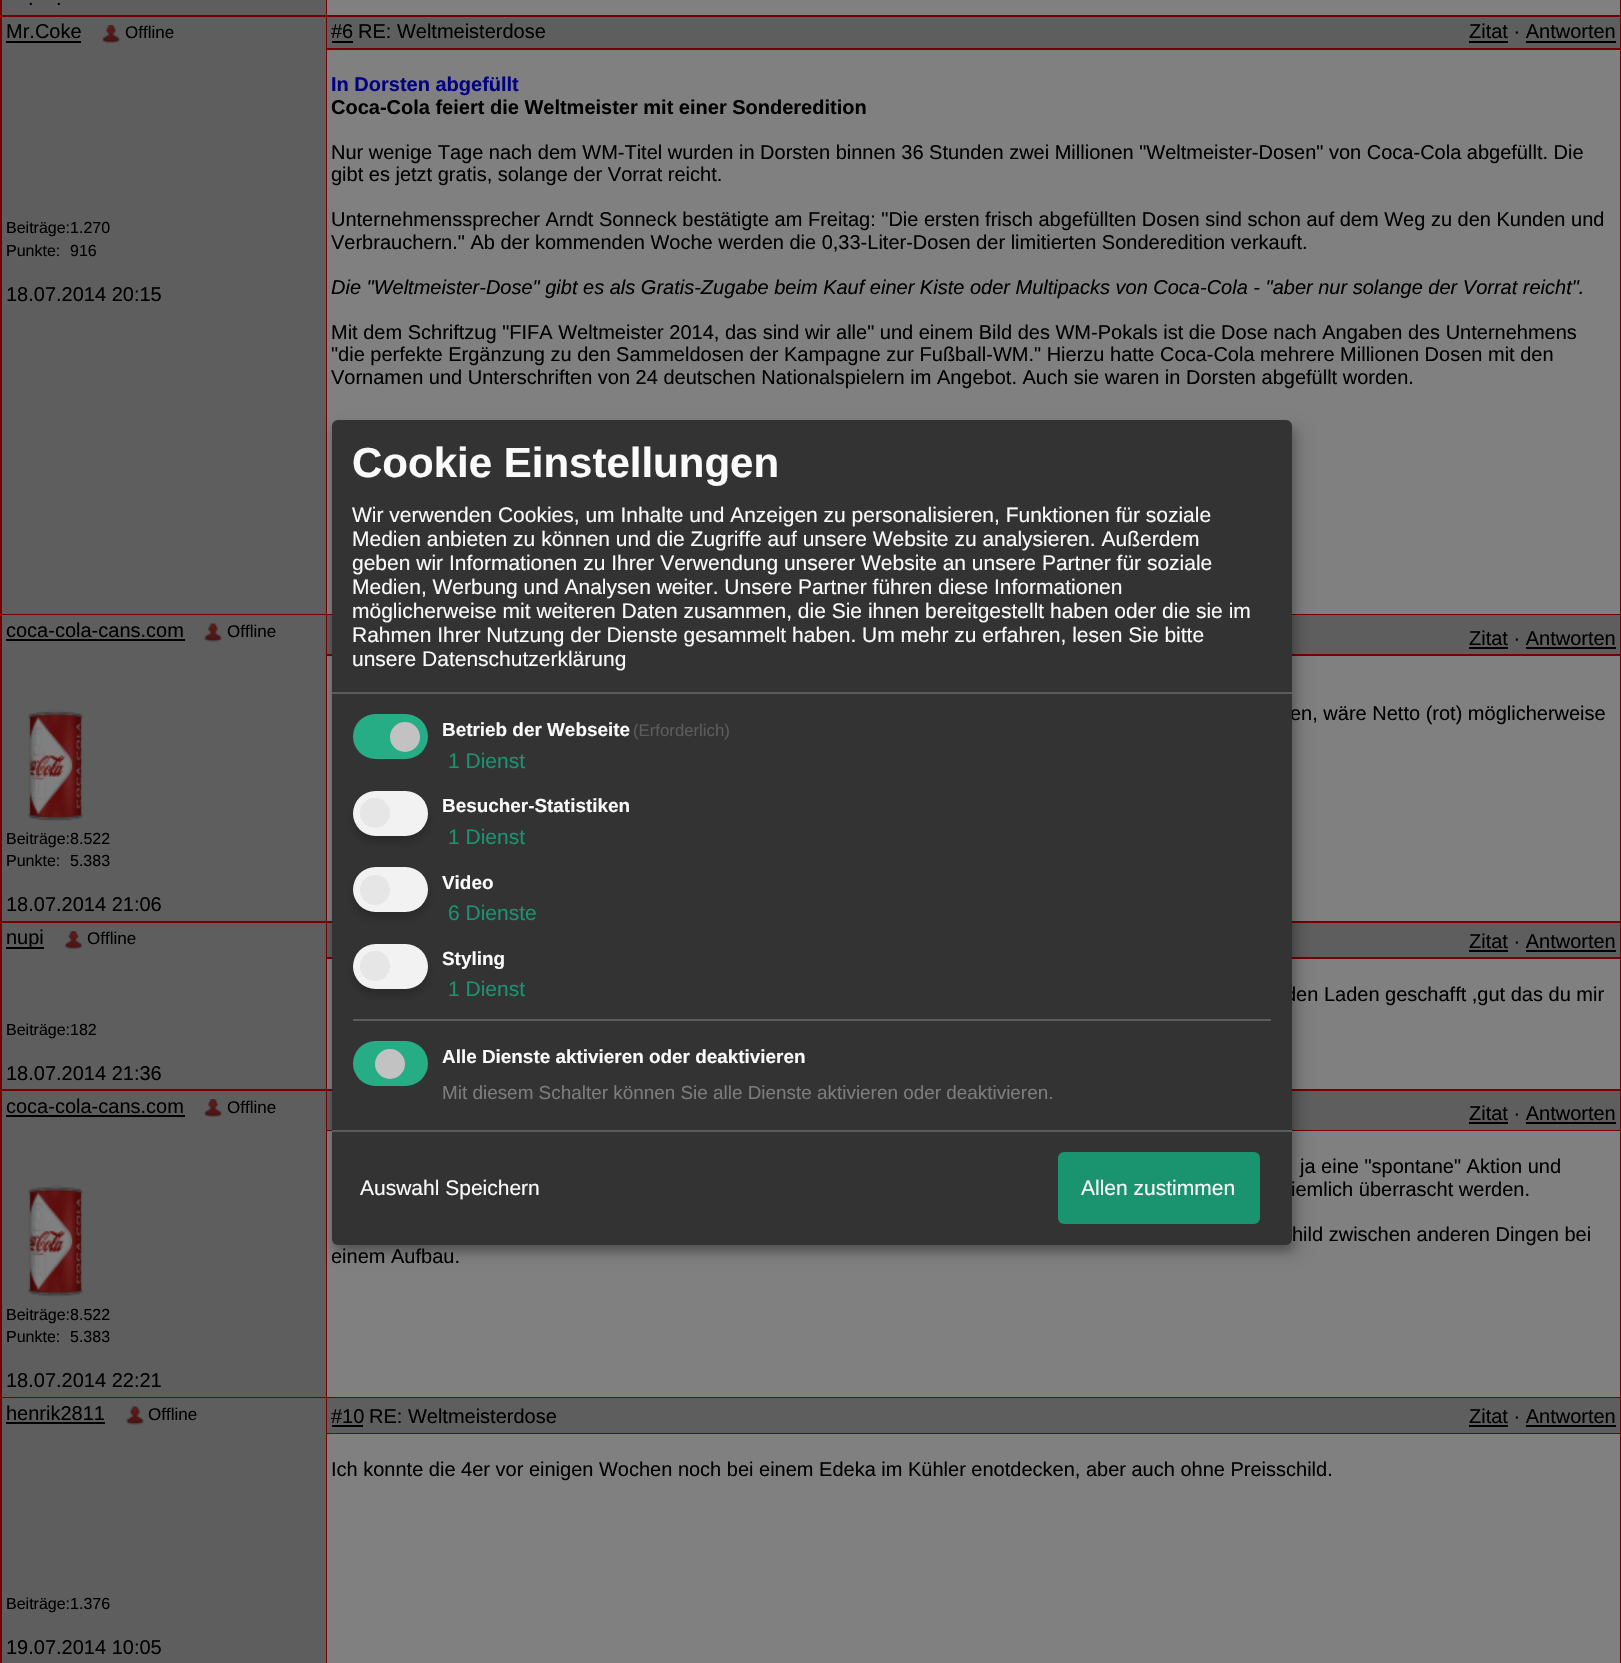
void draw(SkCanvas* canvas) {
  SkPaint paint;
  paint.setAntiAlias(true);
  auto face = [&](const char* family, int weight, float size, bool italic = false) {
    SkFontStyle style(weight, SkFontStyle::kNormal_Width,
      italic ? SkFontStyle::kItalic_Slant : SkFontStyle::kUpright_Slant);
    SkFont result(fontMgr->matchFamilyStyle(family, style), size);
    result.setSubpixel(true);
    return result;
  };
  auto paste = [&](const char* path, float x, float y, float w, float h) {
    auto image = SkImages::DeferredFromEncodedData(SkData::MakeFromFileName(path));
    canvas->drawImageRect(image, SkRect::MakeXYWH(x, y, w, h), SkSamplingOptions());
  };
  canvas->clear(0xff760001);
  {
    const struct { float x, y, w, h; SkColor color; } items[] = {
      {2, 0, 324, 15, 0xff5e5e5e},
      {327, 0, 1293, 15, 0xff808080},
      {2, 17, 324, 597, 0xff5e5e5e},
      {6, 41, 75, 2, 0xff000000},
    };
    for (auto [x, y, w, h, color] : items) {
      paint.setColor(color);
      canvas->drawRect(SkRect::MakeXYWH(x, y, w, h), paint);
    }
  }
  paste("img/1.png", 102, 25, 18, 18);
  {
    const struct { float x, y, w, h; SkColor color; } items[] = {
      {327, 17, 1293, 31, 0xff5e5e5e},
      {332, 41, 21, 2, 0xff000000},
      {1469, 41, 39, 2, 0xff000000},
      {1526, 41, 90, 2, 0xff000000},
      {327, 50, 1293, 564, 0xff808080},
      {2, 615, 324, 306, 0xff5e5e5e},
      {6, 639, 179, 2, 0xff000000},
    };
    for (auto [x, y, w, h, color] : items) {
      paint.setColor(color);
      canvas->drawRect(SkRect::MakeXYWH(x, y, w, h), paint);
    }
  }
  paste("img/2.png", 204, 623, 18, 19);
  paste("img/3.png", 28, 709, 55, 113);
  {
    const struct { float x, y, w, h; SkColor color; } items[] = {
      {327, 615, 1293, 39, 0xff5e5e5e},
      {1469, 647, 39, 2, 0xff000000},
      {1526, 647, 90, 2, 0xff000000},
      {327, 656, 1293, 265, 0xff808080},
      {2, 923, 324, 166, 0xff5e5e5e},
      {6, 947, 38, 2, 0xff000000},
    };
    for (auto [x, y, w, h, color] : items) {
      paint.setColor(color);
      canvas->drawRect(SkRect::MakeXYWH(x, y, w, h), paint);
    }
  }
  paste("img/4.png", 64, 931, 19, 18);
  {
    const struct { float x, y, w, h; SkColor color; } items[] = {
      {327, 923, 1293, 34, 0xff5e5e5e},
      {1469, 950, 39, 2, 0xff000000},
      {1526, 950, 90, 2, 0xff000000},
      {327, 959, 1293, 130, 0xff808080},
      {2, 1091, 324, 306, 0xff5e5e5e},
      {6, 1115, 179, 2, 0xff000000},
    };
    for (auto [x, y, w, h, color] : items) {
      paint.setColor(color);
      canvas->drawRect(SkRect::MakeXYWH(x, y, w, h), paint);
    }
  }
  paste("img/1.png", 204, 1099, 18, 18);
  paste("img/5.png", 28, 1185, 55, 112);
  {
    const struct { float x, y, w, h; SkColor color; } items[] = {
      {327, 1091, 1293, 39, 0xff5e5e5e},
      {1469, 1122, 39, 2, 0xff000000},
      {1526, 1122, 90, 2, 0xff000000},
      {327, 1131, 1293, 266, 0xff808080},
      {2, 1398, 324, 265, 0xff5e5e5e},
      {6, 1422, 99, 2, 0xff000000},
    };
    for (auto [x, y, w, h, color] : items) {
      paint.setColor(color);
      canvas->drawRect(SkRect::MakeXYWH(x, y, w, h), paint);
    }
  }
  paste("img/2.png", 126, 1406, 18, 19);
  {
    const struct { float x, y, w, h; SkColor color; } items[] = {
      {327, 1398, 1293, 35, 0xff5e5e5e},
      {332, 1425, 31, 2, 0xff000000},
      {1469, 1425, 39, 2, 0xff000000},
      {1526, 1425, 90, 2, 0xff000000},
      {327, 1434, 1293, 229, 0xff808080},
    };
    for (auto [x, y, w, h, color] : items) {
      paint.setColor(color);
      canvas->drawRect(SkRect::MakeXYWH(x, y, w, h), paint);
    }
  }
  paint.setColor(0x30000000);
  paint.setMaskFilter(SkMaskFilter::MakeBlur(kNormal_SkBlurStyle, 7.5f));
  canvas->drawRoundRect(SkRect::MakeXYWH(339, 428, 960, 825), 6, 6, paint);
  paint.setMaskFilter(nullptr);
  paint.setColor(0x33000000);
  paint.setMaskFilter(SkMaskFilter::MakeBlur(kNormal_SkBlurStyle, 4.5f));
  canvas->drawRoundRect(SkRect::MakeXYWH(332, 426, 960, 825), 6, 6, paint);
  paint.setMaskFilter(nullptr);
  auto f0 = face("Liberation Sans", 400, 20);
  paint.setColor(0xff000000);
  {
    const struct { const char* s; float x, y; } items[] = {
      {".", 28, 5},
      {".", 56, 5},
      {"Mr.Coke", 6, 38},
    };
    for (auto [s, x, y] : items) {
      canvas->drawString(s, x, y, f0, paint);
    }
  }
  auto f1 = face("Liberation Sans", 400, 17);
  canvas->drawString("Offline", 125, 38, f1, paint);
  auto f2 = face("Liberation Sans", 400, 16);
  {
    const struct { const char* s; float x, y; } items[] = {
      {"Beiträge:1.270", 6, 233},
      {"Punkte:", 6, 256},
      {"916", 70, 256},
    };
    for (auto [s, x, y] : items) {
      canvas->drawString(s, x, y, f2, paint);
    }
  }
  {
    const struct { const char* s; float x, y; } items[] = {
      {"18.07.2014 20:15", 6, 301},
      {"#6", 331, 38},
      {"RE: Weltmeisterdose", 358, 38},
      {"Zitat · Antworten", 1469, 38},
    };
    for (auto [s, x, y] : items) {
      canvas->drawString(s, x, y, f0, paint);
    }
  }
  auto f3 = face("Liberation Sans", 700, 20);
  paint.setColor(0xff000080);
  canvas->drawString("In Dorsten abgefüllt", 331, 91, f3, paint);
  paint.setColor(0xff000000);
  canvas->drawString("Coca-Cola feiert die Weltmeister mit einer Sonderedition", 331, 114, f3, paint);
  {
    const struct { const char* s; float x, y; } items[] = {
      {"Nur wenige Tage nach dem WM-Titel wurden in Dorsten binnen 36 Stunden zwei Millionen \"Weltmeister-Dosen\" von Coca-Cola abgefüllt. Die", 331, 159},
      {"gibt es jetzt gratis, solange der Vorrat reicht.", 331, 181},
      {"Unternehmenssprecher Arndt Sonneck bestätigte am Freitag: \"Die ersten frisch abgefüllten Dosen sind schon auf dem Weg zu den Kunden und", 331, 226},
      {"Verbrauchern.\" Ab der kommenden Woche werden die 0,33-Liter-Dosen der limitierten Sonderedition verkauft.", 331, 249},
    };
    for (auto [s, x, y] : items) {
      canvas->drawString(s, x, y, f0, paint);
    }
  }
  auto f4 = face("Liberation Sans", 400, 20, true);
  canvas->drawString("Die \"Weltmeister-Dose\" gibt es als Gratis-Zugabe beim Kauf einer Kiste oder Multipacks von Coca-Cola - \"aber nur solange der Vorrat reicht\".", 331, 294, f4, paint);
  {
    const struct { const char* s; float x, y; } items[] = {
      {"Mit dem Schriftzug \"FIFA Weltmeister 2014, das sind wir alle\" und einem Bild des WM-Pokals ist die Dose nach Angaben des Unternehmens", 331, 339},
      {"\"die perfekte Ergänzung zu den Sammeldosen der Kampagne zur Fußball-WM.\" Hierzu hatte Coca-Cola mehrere Millionen Dosen mit den", 331, 361},
      {"Vornamen und Unterschriften von 24 deutschen Nationalspielern im Angebot. Auch sie waren in Dorsten abgefüllt worden.", 331, 384},
      {"coca-cola-cans.com", 6, 637},
    };
    for (auto [s, x, y] : items) {
      canvas->drawString(s, x, y, f0, paint);
    }
  }
  canvas->drawString("Offline", 227, 637, f1, paint);
  {
    const struct { const char* s; float x, y; } items[] = {
      {"Beiträge:8.522", 6, 844},
      {"Punkte:", 6, 866},
      {"5.383", 70, 866},
    };
    for (auto [s, x, y] : items) {
      canvas->drawString(s, x, y, f2, paint);
    }
  }
  {
    const struct { const char* s; float x, y; } items[] = {
      {"18.07.2014 21:06", 6, 911},
      {"Zitat · Antworten", 1469, 645},
      {"en, wäre Netto (rot) möglicherweise", 1290, 720},
      {"nupi", 6, 944},
    };
    for (auto [s, x, y] : items) {
      canvas->drawString(s, x, y, f0, paint);
    }
  }
  canvas->drawString("Offline", 87, 944, f1, paint);
  canvas->drawString("Beiträge:182", 6, 1035, f2, paint);
  {
    const struct { const char* s; float x, y; } items[] = {
      {"18.07.2014 21:36", 6, 1080},
      {"Zitat · Antworten", 1469, 948},
      {"den Laden geschafft ,gut das du mir", 1285, 1001},
      {"coca-cola-cans.com", 6, 1113},
    };
    for (auto [s, x, y] : items) {
      canvas->drawString(s, x, y, f0, paint);
    }
  }
  canvas->drawString("Offline", 227, 1113, f1, paint);
  {
    const struct { const char* s; float x, y; } items[] = {
      {"Beiträge:8.522", 6, 1320},
      {"Punkte:", 6, 1342},
      {"5.383", 70, 1342},
    };
    for (auto [s, x, y] : items) {
      canvas->drawString(s, x, y, f2, paint);
    }
  }
  {
    const struct { const char* s; float x, y; } items[] = {
      {"18.07.2014 22:21", 6, 1387},
      {"Zitat · Antworten", 1469, 1120},
      {"ja eine \"spontane\" Aktion und", 1300, 1173},
      {"iemlich überrascht werden.", 1291, 1196},
      {"hild zwischen anderen Dingen bei", 1292, 1241},
      {"einem Aufbau.", 331, 1263},
      {"henrik2811", 6, 1420},
    };
    for (auto [s, x, y] : items) {
      canvas->drawString(s, x, y, f0, paint);
    }
  }
  canvas->drawString("Offline", 148, 1420, f1, paint);
  canvas->drawString("Beiträge:1.376", 6, 1609, f2, paint);
  {
    const struct { const char* s; float x, y; } items[] = {
      {"19.07.2014 10:05", 6, 1654},
      {"#10", 331, 1423},
      {"RE: Weltmeisterdose", 369, 1423},
      {"Zitat · Antworten", 1469, 1423},
      {"Ich konnte die 4er vor einigen Wochen noch bei einem Edeka im Kühler enotdecken, aber auch ohne Preisschild.", 331, 1476},
    };
    for (auto [s, x, y] : items) {
      canvas->drawString(s, x, y, f0, paint);
    }
  }
  paint.setColor(0xff333333);
  canvas->drawRoundRect(SkRect::MakeXYWH(332, 420, 960, 825), 6, 6, paint);
  paint.setColor(0xff5c5c5c);
  canvas->drawRect(SkRect::MakeXYWH(332, 692, 960, 2), paint);
  auto f5 = face("Liberation Sans", 700, 42);
  paint.setColor(0xfffafafa);
  canvas->drawString("Cookie Einstellungen", 352, 477, f5, paint);
  auto f6 = face("Liberation Sans", 400, 21);
  {
    const struct { const char* s; float x, y; } items[] = {
      {"Wir verwenden Cookies, um Inhalte und Anzeigen zu personalisieren, Funktionen für soziale", 352, 522},
      {"Medien anbieten zu können und die Zugriffe auf unsere Website zu analysieren. Außerdem", 352, 546},
      {"geben wir Informationen zu Ihrer Verwendung unserer Website an unsere Partner für soziale", 352, 570},
      {"Medien, Werbung und Analysen weiter. Unsere Partner führen diese Informationen", 352, 594},
      {"möglicherweise mit weiteren Daten zusammen, die Sie ihnen bereitgestellt haben oder die sie im", 352, 618},
      {"Rahmen Ihrer Nutzung der Dienste gesammelt haben. Um mehr zu erfahren, lesen Sie bitte", 352, 642},
      {"unsere Datenschutzerklärung", 352, 666},
    };
    for (auto [s, x, y] : items) {
      canvas->drawString(s, x, y, f6, paint);
    }
  }
  paint.setColor(0xff27ad85);
  canvas->drawRoundRect(SkRect::MakeXYWH(353, 714, 75, 45), 22.5f, 22.5f, paint);
  paint.setColor(0xffc2c2c2);
  canvas->drawCircle(405, 737, 15, paint);
  auto f7 = face("Liberation Sans", 700, 18.9f);
  paint.setColor(0xfffafafa);
  canvas->drawString("Betrieb der Webseite", 442, 736, f7, paint);
  auto f8 = face("Liberation Sans", 400, 16.75f);
  paint.setColor(0xff5c5c5c);
  canvas->drawString("(Erforderlich)", 633, 736, f8, paint);
  paint.setColor(0xff1a936f);
  canvas->drawString("1 Dienst", 448, 768, f6, paint);
  paint.setColor(0x33000000);
  paint.setMaskFilter(SkMaskFilter::MakeBlur(kNormal_SkBlurStyle, 4.5f));
  canvas->drawRoundRect(SkRect::MakeXYWH(353, 797, 75, 45), 22.5f, 22.5f, paint);
  paint.setMaskFilter(nullptr);
  paint.setColor(0xfff2f2f2);
  canvas->drawRoundRect(SkRect::MakeXYWH(353, 791, 75, 45), 22.5f, 22.5f, paint);
  paint.setColor(0xffe6e6e6);
  canvas->drawCircle(375, 813, 15, paint);
  paint.setColor(0xfffafafa);
  canvas->drawString("Besucher-Statistiken", 442, 812, f7, paint);
  paint.setColor(0xff1a936f);
  canvas->drawString("1 Dienst", 448, 844, f6, paint);
  paint.setColor(0x33000000);
  paint.setMaskFilter(SkMaskFilter::MakeBlur(kNormal_SkBlurStyle, 4.5f));
  canvas->drawRoundRect(SkRect::MakeXYWH(353, 873, 75, 45), 22.5f, 22.5f, paint);
  paint.setMaskFilter(nullptr);
  paint.setColor(0xfff2f2f2);
  canvas->drawRoundRect(SkRect::MakeXYWH(353, 867, 75, 45), 22.5f, 22.5f, paint);
  paint.setColor(0xffe6e6e6);
  canvas->drawCircle(375, 890, 15, paint);
  paint.setColor(0xfffafafa);
  canvas->drawString("Video", 442, 889, f7, paint);
  paint.setColor(0xff1a936f);
  canvas->drawString("6 Dienste", 448, 920, f6, paint);
  paint.setColor(0x33000000);
  paint.setMaskFilter(SkMaskFilter::MakeBlur(kNormal_SkBlurStyle, 4.5f));
  canvas->drawRoundRect(SkRect::MakeXYWH(353, 950, 75, 45), 22.5f, 22.5f, paint);
  paint.setMaskFilter(nullptr);
  paint.setColor(0xfff2f2f2);
  canvas->drawRoundRect(SkRect::MakeXYWH(353, 944, 75, 45), 22.5f, 22.5f, paint);
  paint.setColor(0xffe6e6e6);
  canvas->drawCircle(375, 966, 15, paint);
  paint.setColor(0xfffafafa);
  canvas->drawString("Styling", 442, 965, f7, paint);
  paint.setColor(0xff1a936f);
  canvas->drawString("1 Dienst", 448, 996, f6, paint);
  paint.setColor(0xff5c5c5c);
  canvas->drawRect(SkRect::MakeXYWH(353, 1019, 918, 2), paint);
  paint.setColor(0xff27ad85);
  canvas->drawRoundRect(SkRect::MakeXYWH(353, 1041, 75, 45), 22.5f, 22.5f, paint);
  paint.setColor(0xffc2c2c2);
  canvas->drawCircle(390, 1064, 15, paint);
  paint.setColor(0xfffafafa);
  canvas->drawString("Alle Dienste aktivieren oder deaktivieren", 442, 1063, f7, paint);
  auto f9 = face("Liberation Sans", 400, 18.9f);
  paint.setColor(0xff7c7c7c);
  canvas->drawString("Mit diesem Schalter können Sie alle Dienste aktivieren oder deaktivieren.", 442, 1099, f9, paint);
  paint.setColor(0xff5c5c5c);
  canvas->drawRect(SkRect::MakeXYWH(332, 1130, 960, 2), paint);
  paint.setColor(0xfffafafa);
  canvas->drawString("Auswahl Speichern", 360, 1195, f6, paint);
  paint.setColor(0xff1a936f);
  canvas->drawRoundRect(SkRect::MakeXYWH(1058, 1152, 202, 72), 6, 6, paint);
  paint.setColor(0xfffafafa);
  canvas->drawString("Allen zustimmen", 1081, 1195, f6, paint);
}
